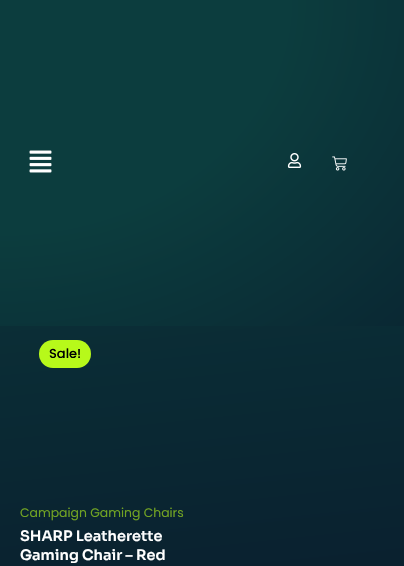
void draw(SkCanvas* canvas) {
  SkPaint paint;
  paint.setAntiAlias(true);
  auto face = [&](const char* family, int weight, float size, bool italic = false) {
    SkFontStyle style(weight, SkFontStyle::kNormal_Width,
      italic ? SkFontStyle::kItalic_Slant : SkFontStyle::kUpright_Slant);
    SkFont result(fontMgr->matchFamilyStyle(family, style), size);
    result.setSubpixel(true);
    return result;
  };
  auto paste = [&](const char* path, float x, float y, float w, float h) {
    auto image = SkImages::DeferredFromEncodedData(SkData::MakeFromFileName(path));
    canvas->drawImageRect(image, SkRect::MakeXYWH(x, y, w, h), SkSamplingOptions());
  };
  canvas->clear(0xffffffff);
  {
    const SkColor colors[] = {0xff0c3d3e, 0xff0a2833};
    const float stops[] = {0.5f, 1};
    SkMatrix m = SkMatrix::Translate(0, 0).preScale(571, 461);
    paint.setShader(SkGradientShader::MakeRadial({0, 0}, 1, colors, stops, 2, SkTileMode::kClamp, 0, &m));
    paint.setAlpha(255);
  }
  canvas->drawRect(SkRect::MakeXYWH(0, 0, 404, 326), paint);
  paste("img/1.png", 29, 150, 23, 23);
  paste("img/2.png", 287, 153, 15, 15);
  paste("img/3.png", 332, 156, 15, 15);
  {
    const SkColor colors[] = {0xff070420, 0xff0c3d3e};
    const float stops[] = {0.25f, 1};
    const SkPoint ends[] = {{287, 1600}, {117, -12}};
    paint.setShader(SkGradientShader::MakeLinear(ends, colors, stops, 2, SkTileMode::kClamp));
    paint.setAlpha(255);
  }
  canvas->drawRect(SkRect::MakeXYWH(0, 326, 404, 240), paint);
  paint.setShader(nullptr);
  paint.setColor(0xffb7f91a);
  canvas->drawRoundRect(SkRect::MakeXYWH(39, 340, 52, 28), 14, 14, paint);
  auto f0 = face("Poppins", 500, 13);
  paint.setColor(0xff000000);
  canvas->drawString("Sale!", 49, 358, f0, paint);
  auto f1 = face("Poppins", 400, 12.4f);
  paint.setColor(0xff72a423);
  canvas->drawString("Campaign Gaming Chairs", 20, 517, f1, paint);
  auto f2 = face("Sora", 600, 14.5f);
  paint.setColor(0xffffffff);
  canvas->drawString("SHARP Leatherette", 20, 541, f2, paint);
  canvas->drawString("Gaming Chair – Red", 20, 560, f2, paint);
}
